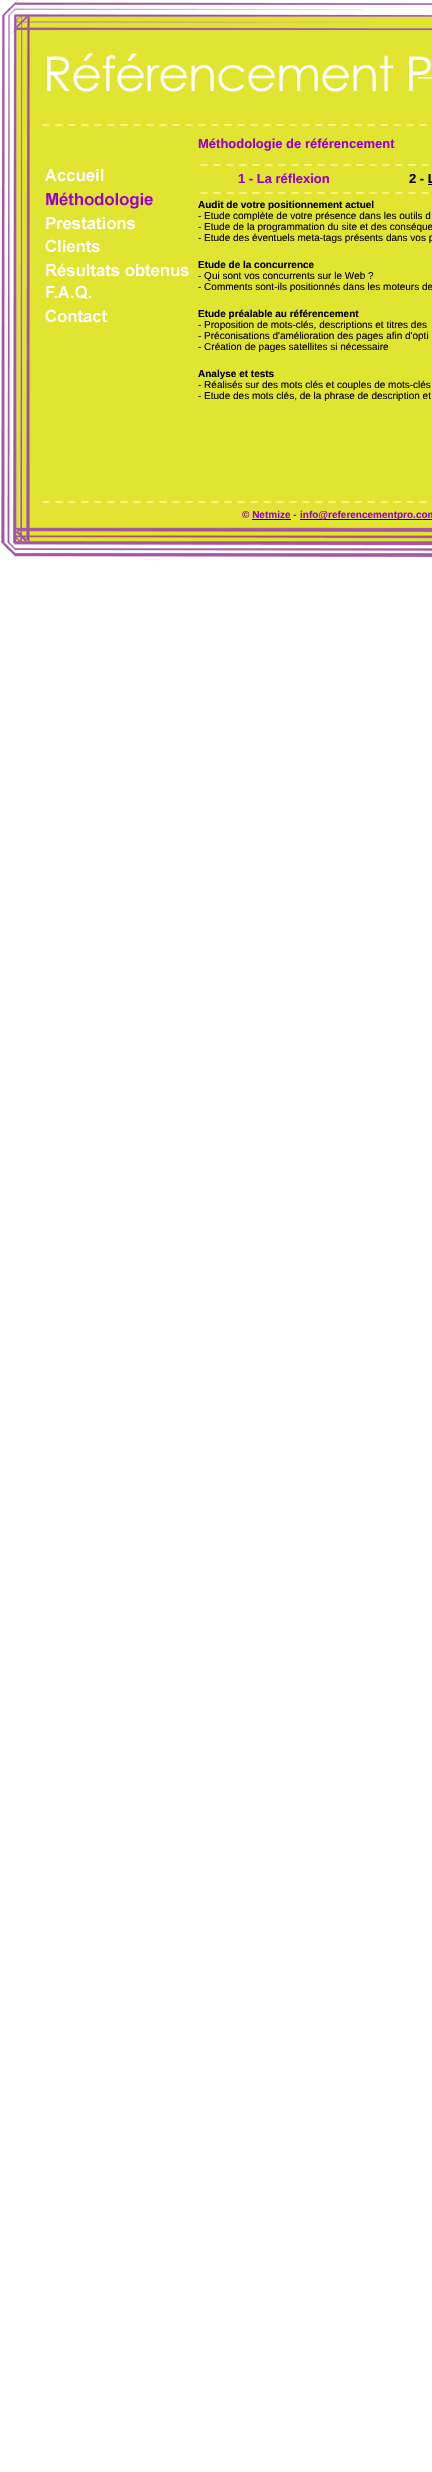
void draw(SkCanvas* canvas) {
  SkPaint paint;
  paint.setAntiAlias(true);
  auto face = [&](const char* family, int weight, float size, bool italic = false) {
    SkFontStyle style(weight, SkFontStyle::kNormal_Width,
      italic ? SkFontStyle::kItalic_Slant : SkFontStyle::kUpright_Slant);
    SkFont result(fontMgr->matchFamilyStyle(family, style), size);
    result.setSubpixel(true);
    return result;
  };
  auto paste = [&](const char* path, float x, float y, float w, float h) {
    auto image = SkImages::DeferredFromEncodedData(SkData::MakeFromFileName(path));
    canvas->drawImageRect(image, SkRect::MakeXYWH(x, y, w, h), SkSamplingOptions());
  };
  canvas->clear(0xffffffff);
  paint.setColor(0xffe1e430);
  canvas->drawRect(SkRect::MakeXYWH(31, 31, 401, 495), paint);
  paste("img/1.png", 0, 0, 31, 557);
  paste("img/2.png", 31, 0, 401, 31);
  paste("img/3.png", 47, 53, 385, 39);
  paste("img/4.png", 42, 124, 385, 2);
  paste("img/5.png", 45, 169, 59, 13);
  paste("img/6.png", 46, 192, 107, 17);
  paste("img/7.png", 46, 217, 89, 13);
  paste("img/8.png", 45, 239, 55, 14);
  paste("img/9.png", 46, 263, 143, 14);
  paste("img/10.png", 46, 285, 45, 15);
  paste("img/11.png", 45, 309, 62, 14);
  paste("img/12.png", 200, 164, 229, 2);
  paint.setColor(0xff000000);
  canvas->drawRect(SkRect::MakeXYWH(428, 184, 4, 1), paint);
  paste("img/12.png", 200, 192, 229, 2);
  paste("img/13.png", 42, 501, 385, 2);
  canvas->drawRect(SkRect::MakeXYWH(252, 519, 39, 1), paint);
  canvas->drawRect(SkRect::MakeXYWH(300, 519, 132, 1), paint);
  paste("img/14.png", 31, 526, 401, 31);
  auto f0 = face("Liberation Sans", 700, 13);
  paint.setColor(0xff9900cc);
  canvas->drawString("Méthodologie de référencement", 198, 148, f0, paint);
  canvas->drawString("1 - La réflexion", 238, 183, f0, paint);
  paint.setColor(0xff000000);
  canvas->drawString("2 - L", 409, 183, f0, paint);
  auto f1 = face("Liberation Sans", 700, 10);
  canvas->drawString("Audit de votre positionnement actuel", 198, 208, f1, paint);
  auto f2 = face("Liberation Sans", 400, 10);
  {
    const struct { const char* s; float x, y; } items[] = {
      {"- Etude complète de votre présence dans les outils d", 198, 219},
      {"- Etude de la programmation du site et des conséque", 198, 230},
      {"- Etude des éventuels meta-tags présents dans vos p", 198, 241},
    };
    for (auto [s, x, y] : items) {
      canvas->drawString(s, x, y, f2, paint);
    }
  }
  canvas->drawString("Etude de la concurrence", 198, 268, f1, paint);
  canvas->drawString("- Qui sont vos concurrents sur le Web ?", 198, 279, f2, paint);
  canvas->drawString("- Comments sont-ils positionnés dans les moteurs de", 198, 290, f2, paint);
  canvas->drawString("Etude préalable au référencement", 198, 317, f1, paint);
  {
    const struct { const char* s; float x, y; } items[] = {
      {"- Proposition de mots-clés, descriptions et titres des", 198, 328},
      {"- Préconisations d'amélioration des pages afin d'opti", 198, 339},
      {"- Création de pages satellites si nécessaire", 198, 350},
    };
    for (auto [s, x, y] : items) {
      canvas->drawString(s, x, y, f2, paint);
    }
  }
  canvas->drawString("Analyse et tests", 198, 377, f1, paint);
  canvas->drawString("- Réalisés sur des mots clés et couples de mots-clés", 198, 388, f2, paint);
  canvas->drawString("- Etude des mots clés, de la phrase de description et", 198, 399, f2, paint);
  paint.setColor(0xff9900cc);
  canvas->drawString("© Netmize -", 242, 518, f1, paint);
  canvas->drawString("info@referencementpro.com", 300, 518, f1, paint);
}
